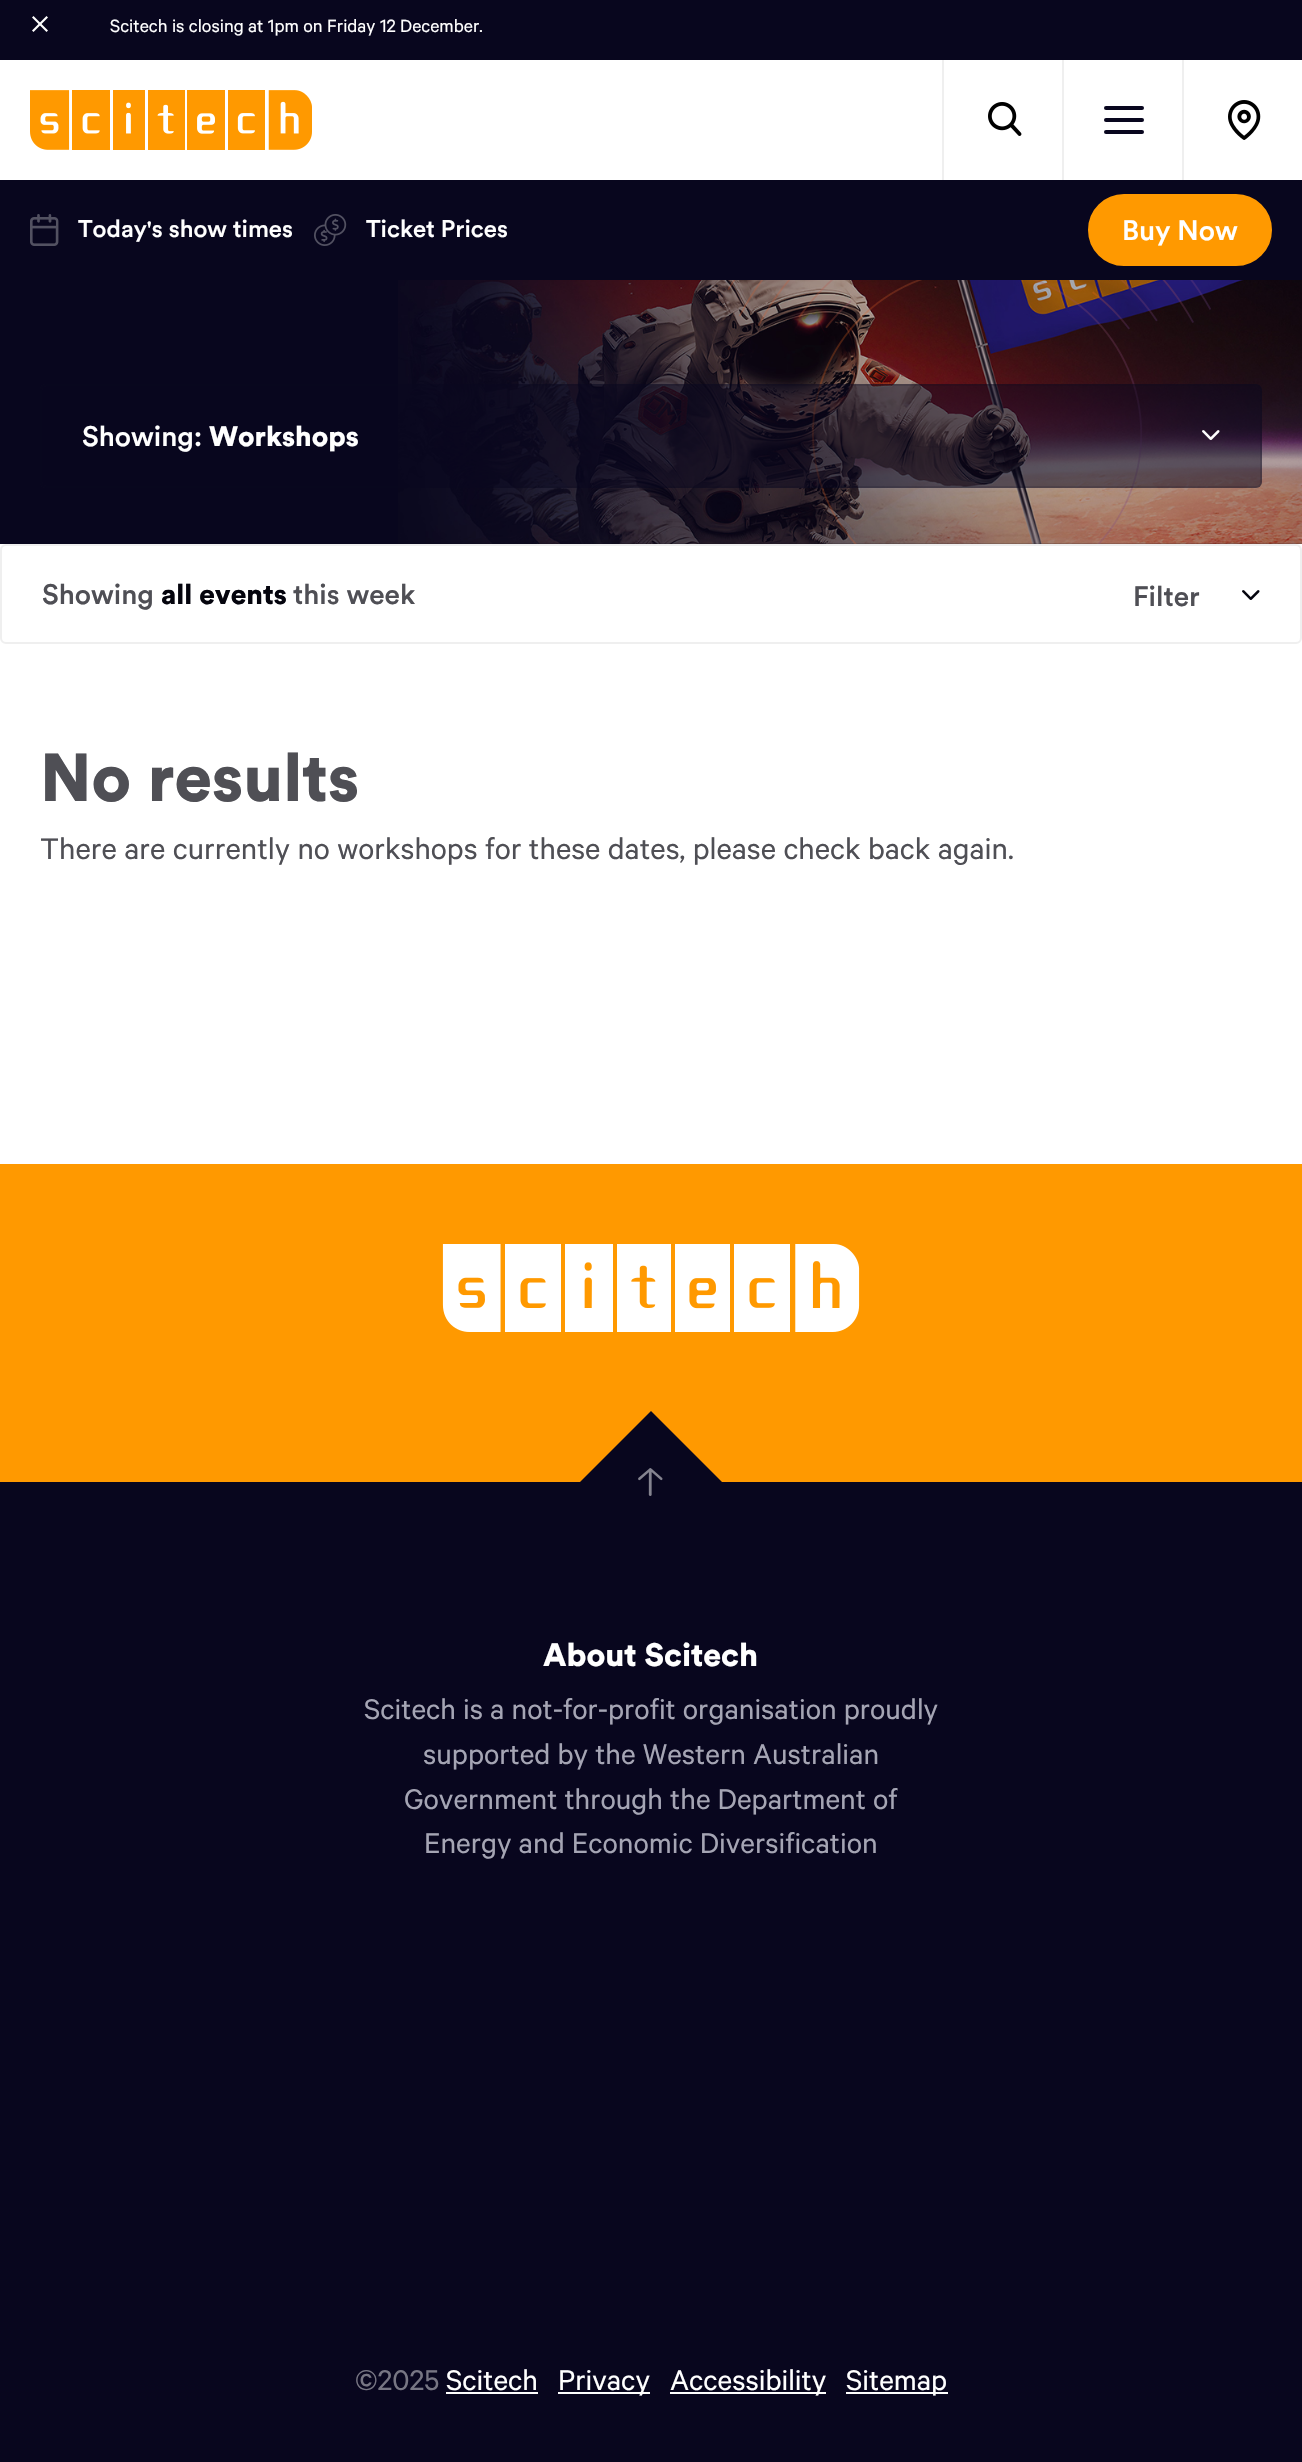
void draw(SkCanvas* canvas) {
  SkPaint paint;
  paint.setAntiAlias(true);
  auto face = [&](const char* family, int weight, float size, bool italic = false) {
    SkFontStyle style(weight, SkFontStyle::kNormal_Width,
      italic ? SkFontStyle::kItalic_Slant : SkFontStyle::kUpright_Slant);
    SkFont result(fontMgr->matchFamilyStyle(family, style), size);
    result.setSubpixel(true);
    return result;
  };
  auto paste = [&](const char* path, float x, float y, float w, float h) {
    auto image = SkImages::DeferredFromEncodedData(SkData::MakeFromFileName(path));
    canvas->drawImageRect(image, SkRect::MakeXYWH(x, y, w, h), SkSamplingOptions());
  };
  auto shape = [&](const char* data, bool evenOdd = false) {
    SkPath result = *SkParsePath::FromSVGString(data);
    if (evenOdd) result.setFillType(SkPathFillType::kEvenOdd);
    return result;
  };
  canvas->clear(0xff08061e);
  paint.setColor(0xffffffff);
  canvas->drawPath(shape("M32 30.5L46.5 16L48 17.5L33.5 32Z"), paint);
  canvas->drawPath(shape("M33.5 16L48 30.5L46.5 32L32 17.5Z"), paint);
  canvas->drawRect(SkRect::MakeXYWH(0, 60, 1302, 120), paint);
  paste("img/1.png", 30, 90, 282, 60);
  paint.setColor(0xffefefef);
  canvas->drawRect(SkRect::MakeXYWH(942, 60, 2, 120), paint);
  paste("img/2.png", 988, 102, 34, 34);
  canvas->drawRect(SkRect::MakeXYWH(1062, 60, 2, 120), paint);
  paint.setColor(0xff08061e);
  canvas->drawRoundRect(SkRect::MakeXYWH(1104, 130, 40, 4), 2, 2, paint);
  canvas->drawRoundRect(SkRect::MakeXYWH(1104, 106, 40, 4), 2, 2, paint);
  canvas->drawRoundRect(SkRect::MakeXYWH(1104, 118, 40, 4), 2, 2, paint);
  paint.setColor(0xffefefef);
  canvas->drawRect(SkRect::MakeXYWH(1182, 60, 2, 120), paint);
  paste("img/3.png", 1228, 100, 33, 40);
  paste("img/4.png", 30, 214, 29, 32);
  paste("img/5.png", 314, 214, 33, 32);
  paint.setColor(0xffff9900);
  canvas->drawRoundRect(SkRect::MakeXYWH(1090, 196, 180, 68), 34, 34, paint);
  paint.setStroke(true);
  paint.setStrokeWidth(4);
  canvas->drawRoundRect(SkRect::MakeXYWH(1090, 196, 180, 68), 34, 34, paint);
  paint.setStroke(false);
  paint.setColor(0xffffffff);
  canvas->drawRect(SkRect::MakeXYWH(0, 544, 1302, 620), paint);
  paste("img/7.png", 398, 280, 904, 264);
  paste("img/8.png", 727, 280, 484, 264);
  paint.setColor(0x8008061e);
  canvas->drawRoundRect(SkRect::MakeXYWH(40, 384, 1222, 104), 6, 6, paint);
  paint.setStroke(true);
  paint.setStrokeWidth(2);
  paint.setColor(0x2608061e);
  canvas->drawRoundRect(SkRect::MakeXYWH(41, 385, 1220, 102), 5, 5, paint);
  paste("img/6.png", 1202, 430, 18, 10);
  paint.setColor(0xffefefef);
  canvas->drawRoundRect(SkRect::MakeXYWH(1, 545, 1300, 98), 5, 5, paint);
  paste("img/9.png", 1242, 590, 18, 10);
  paint.setStroke(false);
  paint.setColor(0xffff9900);
  canvas->drawRect(SkRect::MakeXYWH(0, 1164, 1302, 318), paint);
  paste("img/10.png", 442, 1244, 418, 88);
  paint.setColor(0xff08061e);
  canvas->drawPath(shape("M651 1411L722 1482L651 1553L580 1482Z"), paint);
  paste("img/11.png", 638, 1468, 25, 28);
  {
    const struct { float x, y, w, h; SkColor color; } items[] = {
      {446, 2392, 92, 2, 0xffffffff},
      {558, 2392, 92, 2, 0xffffffff},
      {670, 2392, 156, 2, 0xffffffff},
      {846, 2392, 102, 2, 0xffffffff},
    };
    for (auto [x, y, w, h, color] : items) {
      paint.setColor(color);
      canvas->drawRect(SkRect::MakeXYWH(x, y, w, h), paint);
    }
  }
  auto f0 = face("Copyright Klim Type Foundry", 400, 20);
  canvas->drawString("Scitech is closing at 1pm on Friday 12 December.", 110, 32, f0, paint);
  auto f1 = face("Circular", 500, 24);
  canvas->drawString("Today's show times", 78, 237, f1, paint);
  canvas->drawString("Ticket Prices", 366, 237, f1, paint);
  auto f2 = face("Circular", 500, 28);
  canvas->drawString("Buy Now", 1122, 240, f2, paint);
  canvas->drawString("Showing:", 82, 446, f2, paint);
  auto f3 = face("Circular", 900, 28);
  canvas->drawString("Workshops", 209, 446, f3, paint);
  paint.setColor(0xff4f4f55);
  canvas->drawString("Showing", 42, 604, f2, paint);
  paint.setColor(0xff04040d);
  canvas->drawString("all events", 161, 604, f3, paint);
  paint.setColor(0xff4f4f55);
  canvas->drawString("this week", 293, 604, f2, paint);
  canvas->drawString("Filter", 1133, 606, f2, paint);
  auto f4 = face("Circular", 900, 67);
  canvas->drawString("No results", 40, 801, f4, paint);
  auto f5 = face("Copyright Klim Type Foundry", 400, 33.5f);
  canvas->drawString("There are currently no workshops", 40, 859, f5, paint);
  canvas->drawString("for these dates, please check back again.", 485, 859, f5, paint);
  auto f6 = face("Circular", 900, 32);
  paint.setColor(0xffffffff);
  canvas->drawString("About Scitech", 543, 1666, f6, paint);
  auto f7 = face("Copyright Klim Type Foundry", 400, 32);
  paint.setColor(0xffa5a5b4);
  {
    const struct { const char* s; float x, y; } items[] = {
      {"Scitech is a not-for-profit organisation proudly", 364, 1719},
      {"supported by the Western Australian", 423, 1764},
      {"Government through the Department of", 404, 1809},
      {"Energy and Economic Diversification", 424, 1853},
    };
    for (auto [s, x, y] : items) {
      canvas->drawString(s, x, y, f7, paint);
    }
  }
  paint.setColor(0xff777683);
  canvas->drawString("©2025", 355, 2390, f7, paint);
  paint.setColor(0xffffffff);
  {
    const struct { const char* s; float x, y; } items[] = {
      {"Scitech", 446, 2390},
      {"Privacy", 558, 2390},
      {"Accessibility", 670, 2390},
      {"Sitemap", 846, 2390},
    };
    for (auto [s, x, y] : items) {
      canvas->drawString(s, x, y, f7, paint);
    }
  }
}
